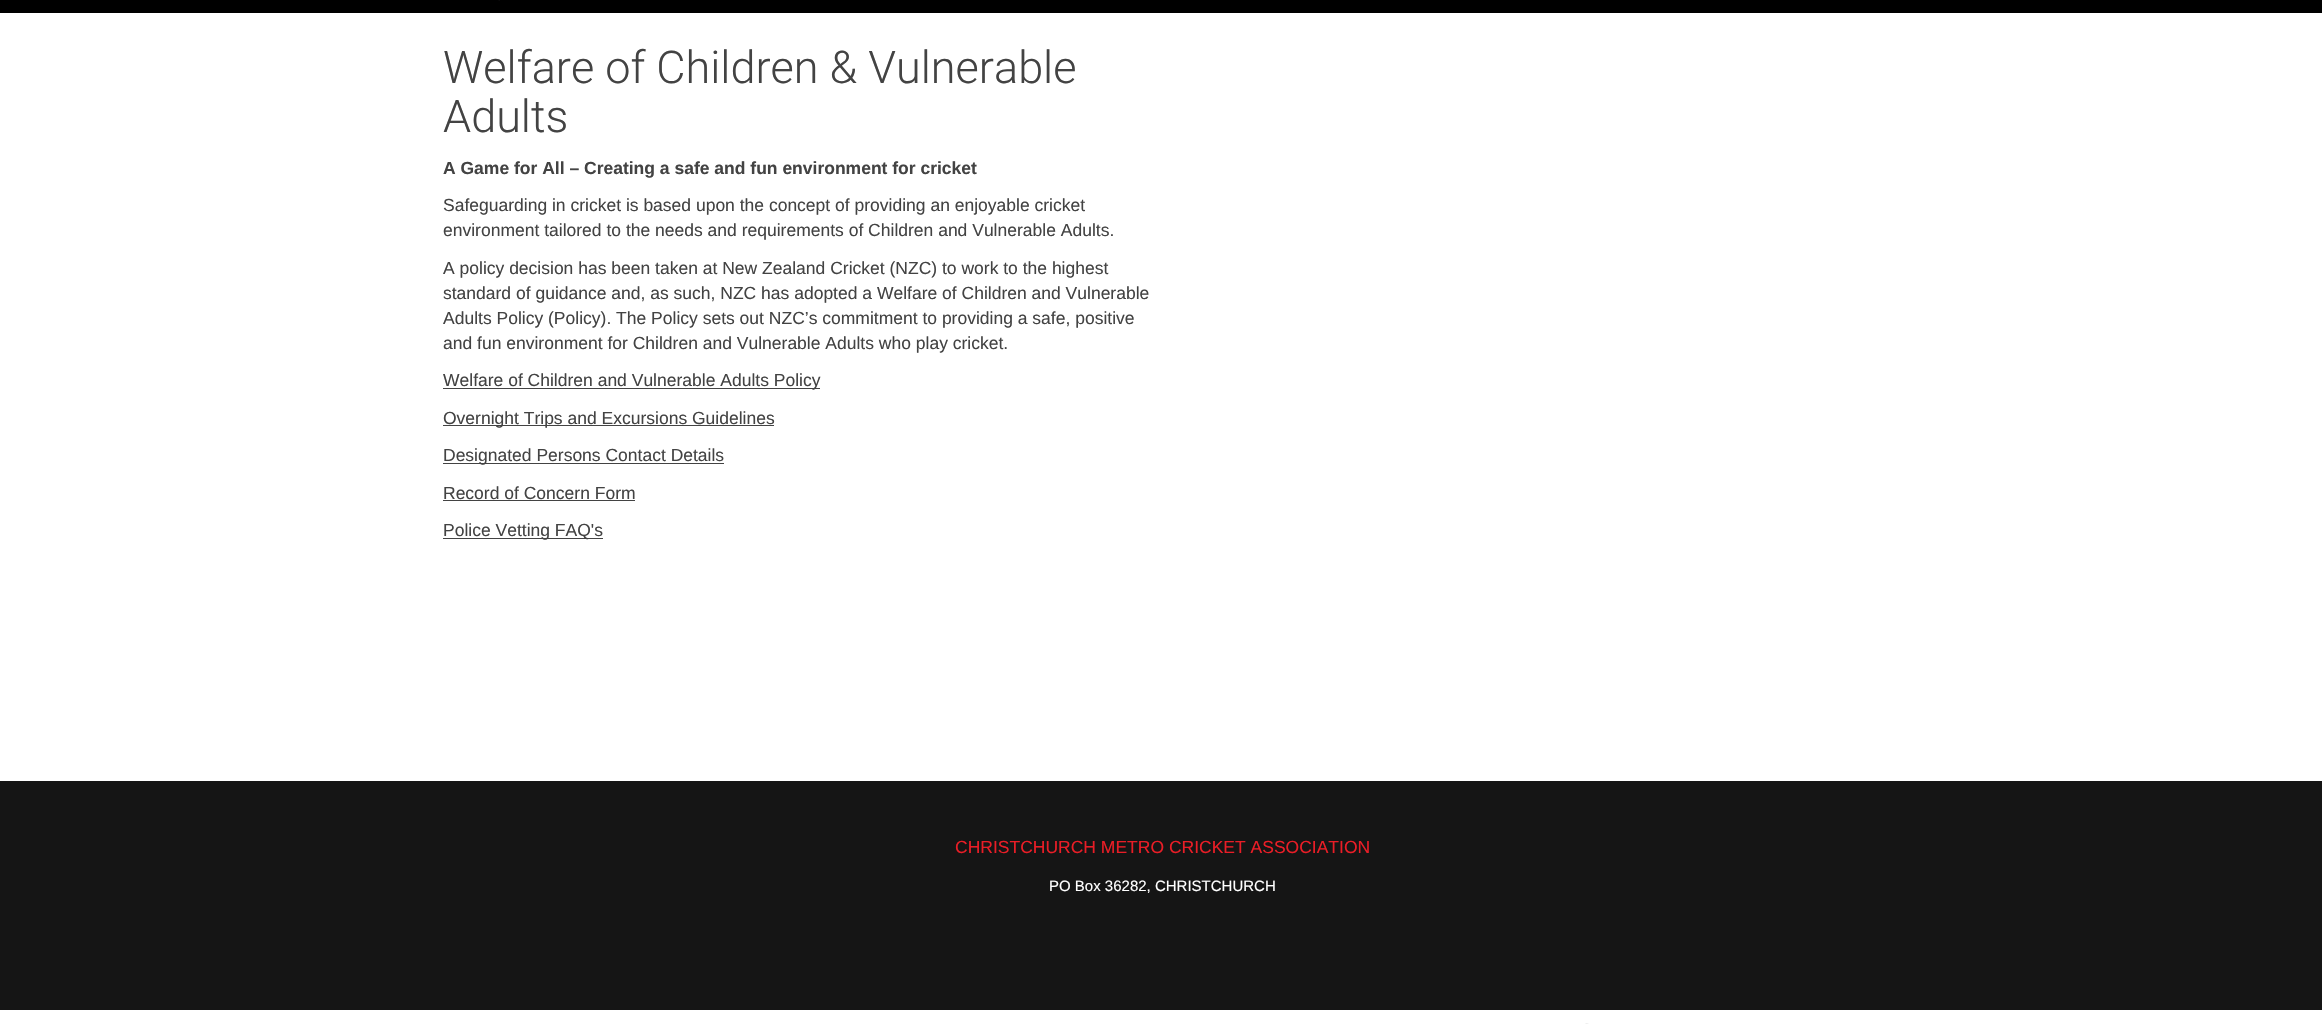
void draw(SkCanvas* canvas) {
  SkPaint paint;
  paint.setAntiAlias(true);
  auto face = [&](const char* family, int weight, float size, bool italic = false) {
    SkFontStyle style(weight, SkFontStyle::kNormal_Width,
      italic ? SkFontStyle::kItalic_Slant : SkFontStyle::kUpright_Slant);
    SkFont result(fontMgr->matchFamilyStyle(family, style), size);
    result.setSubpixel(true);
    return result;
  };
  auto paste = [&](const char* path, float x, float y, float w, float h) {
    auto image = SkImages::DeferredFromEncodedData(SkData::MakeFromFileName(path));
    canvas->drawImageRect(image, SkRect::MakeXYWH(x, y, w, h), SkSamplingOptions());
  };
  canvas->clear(0xffffffff);
  paint.setColor(0xff000000);
  canvas->drawRect(SkRect::MakeXYWH(0, 0, 2322, 13), paint);
  paste("img/1.png", 498, 0, 2, 1);
  {
    const struct { float x, y, w, h; SkColor color; } items[] = {
      {443, 388, 377, 1, 0xff434343},
      {443, 425, 331, 1, 0xff434343},
      {443, 463, 281, 1, 0xff434343},
      {443, 500, 192, 1, 0xff434343},
      {443, 538, 160, 1, 0xff434343},
      {0, 781, 2322, 229, 0xff151515},
    };
    for (auto [x, y, w, h, color] : items) {
      paint.setColor(color);
      canvas->drawRect(SkRect::MakeXYWH(x, y, w, h), paint);
    }
  }
  paste("img/2.png", 1585, 1023, 4, 1);
  auto f0 = face("Roboto", 300, 45);
  paint.setColor(0xff434343);
  canvas->drawString("Welfare of Children & Vulnerable", 443, 83, f0, paint);
  canvas->drawString("Adults", 443, 132, f0, paint);
  auto f1 = face("Liberation Sans", 700, 17.5f);
  canvas->drawString("A Game for All – Creating a safe and fun environment for cricket", 443, 174, f1, paint);
  auto f2 = face("Liberation Sans", 400, 17.5f);
  {
    const struct { const char* s; float x, y; } items[] = {
      {"Safeguarding in cricket is based upon the concept of providing an enjoyable cricket", 443, 211},
      {"environment tailored to the needs and requirements of Children and Vulnerable Adults.", 443, 236},
      {"A policy decision has been taken at New Zealand Cricket (NZC) to work to the highest", 443, 274},
      {"standard of guidance and, as such, NZC has adopted a Welfare of Children and Vulnerable", 443, 299},
      {"Adults Policy (Policy). The Policy sets out NZC’s commitment to providing a safe, positive", 443, 324},
      {"and fun environment for Children and Vulnerable Adults who play cricket.", 443, 349},
      {"Welfare of Children and Vulnerable Adults Policy", 443, 386},
      {"Overnight Trips and Excursions Guidelines", 443, 424},
      {"Designated Persons Contact Details", 443, 461},
      {"Record of Concern Form", 443, 499},
      {"Police Vetting FAQ's", 443, 536},
    };
    for (auto [s, x, y] : items) {
      canvas->drawString(s, x, y, f2, paint);
    }
  }
  paint.setColor(0xffe91d26);
  canvas->drawString("CHRISTCHURCH METRO CRICKET ASSOCIATION", 955, 853, f2, paint);
  auto f3 = face("Liberation Sans", 400, 15);
  paint.setColor(0xffffffff);
  canvas->drawString("PO Box 36282, CHRISTCHURCH", 1049, 891, f3, paint);
}
